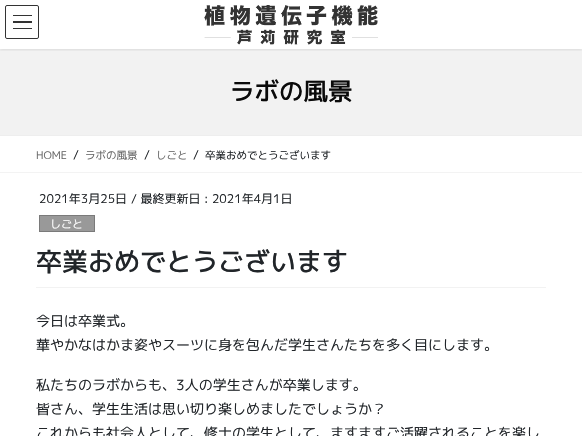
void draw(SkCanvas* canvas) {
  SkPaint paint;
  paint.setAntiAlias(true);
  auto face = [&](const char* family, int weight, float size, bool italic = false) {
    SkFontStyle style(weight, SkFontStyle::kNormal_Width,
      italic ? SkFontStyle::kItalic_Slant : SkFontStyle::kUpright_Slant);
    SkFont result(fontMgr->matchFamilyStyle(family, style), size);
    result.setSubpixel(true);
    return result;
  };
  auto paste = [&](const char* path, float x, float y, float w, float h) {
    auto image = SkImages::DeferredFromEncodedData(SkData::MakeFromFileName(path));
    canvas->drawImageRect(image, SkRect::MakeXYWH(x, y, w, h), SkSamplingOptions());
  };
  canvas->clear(0xffffffff);
  paint.setColor(0xfff2f2f2);
  canvas->drawRect(SkRect::MakeXYWH(0, 49, 582, 86), paint);
  canvas->save();
  canvas->clipRect(SkRect::MakeXYWH(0, 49, 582, 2));
  paint.setColor(0x1a000000);
  paint.setMaskFilter(SkMaskFilter::MakeBlur(kNormal_SkBlurStyle, 1.5f));
  canvas->drawRect(SkRect::MakeXYWH(0, 1, 582, 49), paint);
  paint.setMaskFilter(nullptr);
  canvas->restore();
  paste("img/1.png", 204, 5, 174, 40);
  {
    const struct { float x, y, w, h; SkColor color; } items[] = {
      {13, 15, 19, 1, 0xff333333},
      {13, 21, 19, 2, 0xff333333},
      {13, 28, 19, 1, 0xff333333},
    };
    for (auto [x, y, w, h, color] : items) {
      paint.setColor(color);
      canvas->drawRect(SkRect::MakeXYWH(x, y, w, h), paint);
    }
  }
  paint.setStroke(true);
  paint.setStrokeWidth(1);
  canvas->drawRoundRect(SkRect::MakeXYWH(5.5f, 5.5f, 33, 33), 1.5f, 1.5f, paint);
  paint.setStroke(false);
  {
    const struct { float x, y, w, h; SkColor color; } items[] = {
      {0, 135, 582, 1, 0xffeeeeee},
      {0, 172, 582, 1, 0xfff3f3f3},
      {36, 287, 510, 1, 0xfff2f2f2},
    };
    for (auto [x, y, w, h, color] : items) {
      paint.setColor(color);
      canvas->drawRect(SkRect::MakeXYWH(x, y, w, h), paint);
    }
  }
  paint.setColor(0xff999999);
  canvas->drawRect(SkRect::MakeXYWH(39.5f, 215.5f, 55, 16), paint);
  paint.setStroke(true);
  paint.setColor(0xff7a7a7a);
  canvas->drawRect(SkRect::MakeXYWH(39.5f, 215.5f, 55, 16), paint);
  auto f0 = face("M PLUS 1p", 500, 24.5f);
  paint.setStroke(false);
  paint.setColor(0xff0a0a0a);
  canvas->drawString("ラボの風景", 230, 100, f0, paint);
  auto f1 = face("M PLUS 1p", 400, 10.5f);
  paint.setColor(0xff666666);
  canvas->drawString("HOME", 36, 159, f1, paint);
  auto f2 = face("M PLUS 1p", 400, 12);
  paint.setColor(0xff212529);
  canvas->drawString("/", 73, 159, f2, paint);
  paint.setColor(0xff666666);
  canvas->drawString("ラボの風景", 85, 159, f1, paint);
  paint.setColor(0xff212529);
  canvas->drawString("/", 144, 159, f2, paint);
  paint.setColor(0xff666666);
  canvas->drawString("しごと", 156, 159, f1, paint);
  paint.setColor(0xff212529);
  canvas->drawString("/", 193, 159, f2, paint);
  canvas->drawString("卒業おめでとうございます", 205, 159, f1, paint);
  canvas->drawString("2021年3月25日", 39, 203, f2, paint);
  canvas->drawString("/ 最終更新日 : 2021年4月1日", 131, 203, f2, paint);
  auto f3 = face("M PLUS 1p", 400, 11);
  paint.setColor(0xffffffff);
  canvas->drawString("しごと", 50, 228, f3, paint);
  auto f4 = face("M PLUS 1p", 500, 26);
  paint.setColor(0xff212529);
  canvas->drawString("卒業おめでとうございます", 36, 271, f4, paint);
  auto f5 = face("M PLUS 1p", 400, 14);
  {
    const struct { const char* s; float x, y; } items[] = {
      {"今日は卒業式。", 36, 326},
      {"華やかなはかま姿やスーツに身を包んだ学生さんたちを多く目にします。", 36, 350},
      {"私たちのラボからも、3人の学生さんが卒業します。", 36, 390},
      {"皆さん、学生生活は思い切り楽しめましたでしょうか？", 36, 414},
      {"これからも社会人として、修士の学生として、ますますご活躍されることを楽し", 36, 438},
    };
    for (auto [s, x, y] : items) {
      canvas->drawString(s, x, y, f5, paint);
    }
  }
}
